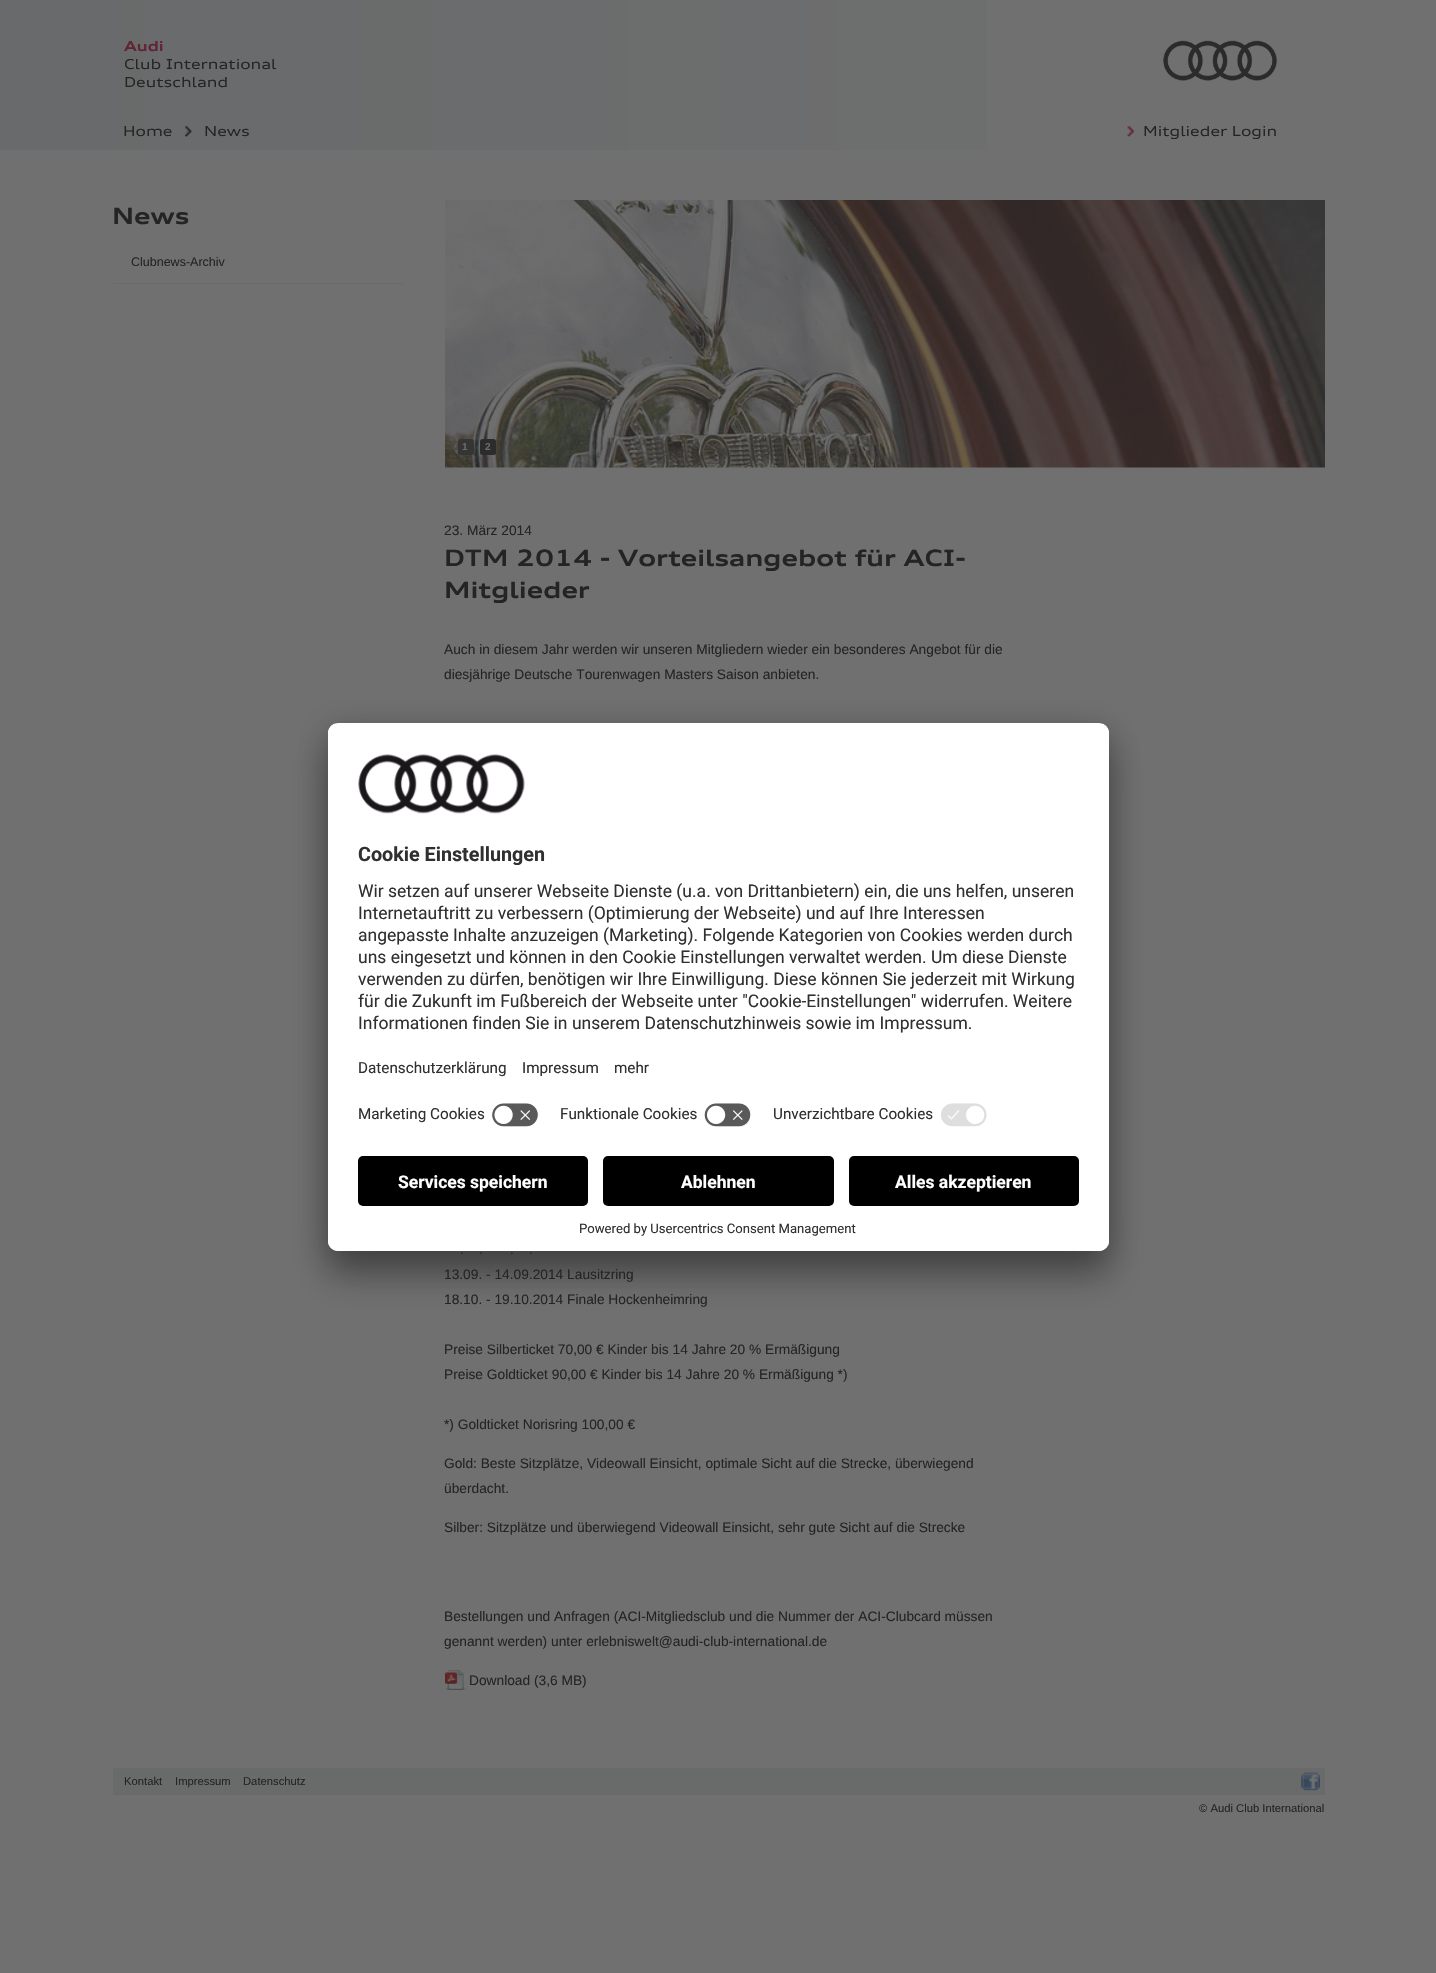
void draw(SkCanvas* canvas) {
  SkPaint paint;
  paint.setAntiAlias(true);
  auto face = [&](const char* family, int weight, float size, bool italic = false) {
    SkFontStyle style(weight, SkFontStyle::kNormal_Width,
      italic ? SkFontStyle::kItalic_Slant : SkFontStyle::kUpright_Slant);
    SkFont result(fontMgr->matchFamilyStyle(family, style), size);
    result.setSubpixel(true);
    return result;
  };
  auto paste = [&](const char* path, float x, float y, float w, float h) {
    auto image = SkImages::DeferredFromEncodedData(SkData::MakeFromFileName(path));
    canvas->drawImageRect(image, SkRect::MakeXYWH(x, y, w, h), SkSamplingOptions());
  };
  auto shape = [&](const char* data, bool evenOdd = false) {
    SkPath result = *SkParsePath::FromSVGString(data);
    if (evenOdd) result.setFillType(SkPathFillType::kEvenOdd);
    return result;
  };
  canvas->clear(0xff707070);
  {
    const SkColor colors[] = {0xff686a6b, 0xff707070};
    const float stops[] = {0, 1};
    const SkPoint ends[] = {{0, 75}, {1436, 75}};
    paint.setShader(SkGradientShader::MakeLinear(ends, colors, stops, 2, SkTileMode::kClamp));
    paint.setAlpha(255);
  }
  canvas->drawRect(SkRect::MakeXYWH(0, 0, 987, 150), paint);
  paste("img/1.png", 1163, 40, 114, 41);
  paste("img/2.png", 185, 126, 7, 11);
  paste("img/3.png", 1127, 126, 7, 11);
  paint.setShader(nullptr);
  paint.setColor(0xff696a6a);
  canvas->drawRect(SkRect::MakeXYWH(113, 283, 291, 1), paint);
  paste("img/4.png", 445, 200, 880, 268);
  paint.setColor(0xff363535);
  canvas->drawRoundRect(SkRect::MakeXYWH(458, 439, 16, 16), 2.5f, 2.5f, paint);
  paint.setColor(0xff2c2c2c);
  canvas->drawRoundRect(SkRect::MakeXYWH(480, 439, 16, 16), 2.5f, 2.5f, paint);
  paste("img/5.png", 445, 1670, 21, 20);
  paint.setColor(0x4d000000);
  paint.setMaskFilter(SkMaskFilter::MakeBlur(kNormal_SkBlurStyle, 17.5f));
  canvas->drawRoundRect(SkRect::MakeXYWH(328, 748, 781, 528), 10, 10, paint);
  paint.setMaskFilter(nullptr);
  paint.setColor(0x38000000);
  paint.setMaskFilter(SkMaskFilter::MakeBlur(kNormal_SkBlurStyle, 16));
  canvas->drawRoundRect(SkRect::MakeXYWH(328, 729, 781, 529), 10, 10, paint);
  paint.setMaskFilter(nullptr);
  paint.setColor(0xffffffff);
  canvas->drawRoundRect(SkRect::MakeXYWH(328, 723, 781, 528), 10, 10, paint);
  canvas->save();
  canvas->clipPath(shape("M338 723H1099C1104.5 723 1109 727.5 1109 733V1241C1109 1246.5 1104.5 1251 1099 1251H338C332.5 1251 328 1246.5 328 1241V733C328 727.5 332.5 723 338 723Z"), true);
  canvas->clipPath(shape("M338 723H1099C1104.5 723 1109 727.5 1109 733V1146H328V733C328 727.5 332.5 723 338 723Z"), true);
  canvas->drawRect(SkRect::MakeXYWH(328, 724, 781, 422), paint);
  canvas->drawRect(SkRect::MakeXYWH(328, 724, 781, 372), paint);
  canvas->restore();
  paste("img/6.png", 358, 754, 167, 60);
  paste("img/7.png", 491, 1103, 48, 24);
  paste("img/8.png", 704, 1103, 47, 24);
  paste("img/9.png", 941, 1103, 46, 24);
  canvas->drawPath(shape("M328 1146H1109V1241C1109 1246.5 1104.5 1251 1099 1251H338C332.5 1251 328 1246.5 328 1241Z"), paint);
  paint.setColor(0xff000000);
  canvas->drawRoundRect(SkRect::MakeXYWH(358, 1156, 230, 50), 5, 5, paint);
  canvas->drawRoundRect(SkRect::MakeXYWH(603, 1156, 231, 50), 5, 5, paint);
  canvas->drawRoundRect(SkRect::MakeXYWH(849, 1156, 230, 50), 5, 5, paint);
  paint.setColor(0xff696a6a);
  canvas->drawRect(SkRect::MakeXYWH(113, 1768, 1212, 27), paint);
  paste("img/10.png", 1301, 1772, 19, 19);
  auto f0 = face("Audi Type", 700, 13.75f);
  paint.setColor(0xff612433);
  canvas->drawString("Audi", 124, 51, f0, paint);
  auto f1 = face("Audi Type", 400, 13.75f);
  paint.setColor(0xff242424);
  {
    const struct { const char* s; float x, y; } items[] = {
      {"Club International", 124, 69},
      {"Deutschland", 124, 87},
      {"Home", 123, 136},
      {"News", 204, 136},
      {"Mitglieder Login", 1143, 136},
    };
    for (auto [s, x, y] : items) {
      canvas->drawString(s, x, y, f1, paint);
    }
  }
  auto f2 = face("Audi Type", 700, 22.5f);
  canvas->drawString("News", 112, 224, f2, paint);
  auto f3 = face("Liberation Sans", 400, 12.5f);
  canvas->drawString("Clubnews-Archiv", 131, 266, f3, paint);
  auto f4 = face("Liberation Sans", 700, 10);
  paint.setColor(0xff6b6b6b);
  canvas->drawString("1", 462, 450, f4, paint);
  canvas->drawString("2", 485, 450, f4, paint);
  auto f5 = face("Liberation Sans", 400, 13.75f);
  paint.setColor(0xff242424);
  canvas->drawString("23. März 2014", 444, 535, f5, paint);
  canvas->drawString("DTM 2014 - Vorteilsangebot für ACI-", 444, 566, f2, paint);
  canvas->drawString("Mitglieder", 444, 598, f2, paint);
  {
    const struct { const char* s; float x, y; } items[] = {
      {"Auch in diesem Jahr werden wir unseren Mitgliedern wieder ein besonderes Angebot für die", 444, 654},
      {"diesjährige Deutsche Tourenwagen Masters Saison anbieten.", 444, 679},
      {".", 460, 1254},
      {".", 479, 1254},
      {".", 510, 1254},
      {".", 529, 1254},
      {"13.09. - 14.09.2014 Lausitzring", 444, 1279},
      {"18.10. - 19.10.2014 Finale Hockenheimring", 444, 1304},
      {"Preise Silberticket 70,00 € Kinder bis 14 Jahre 20 % Ermäßigung", 444, 1354},
      {"Preise Goldticket 90,00 € Kinder bis 14 Jahre 20 % Ermäßigung *)", 444, 1379},
      {"*) Goldticket Norisring 100,00 €", 444, 1429},
      {"Gold: Beste Sitzplätze, Videowall Einsicht, optimale Sicht auf die Strecke, überwiegend", 444, 1468},
      {"überdacht.", 444, 1493},
      {"Silber: Sitzplätze und überwiegend Videowall Einsicht, sehr gute Sicht auf die Strecke", 444, 1532},
      {"Bestellungen und Anfragen (ACI-Mitgliedsclub und die Nummer der ACI-Clubcard müssen", 444, 1621},
      {"genannt werden) unter erlebniswelt@audi-club-international.de", 444, 1646},
      {"Download (3,6 MB)", 469, 1685},
    };
    for (auto [s, x, y] : items) {
      canvas->drawString(s, x, y, f5, paint);
    }
  }
  auto f6 = face("Roboto", 700, 19.75f);
  paint.setColor(0xff303030);
  canvas->drawString("Cookie Einstellungen", 358, 861, f6, paint);
  auto f7 = face("Roboto", 400, 17.5f);
  {
    const struct { const char* s; float x, y; } items[] = {
      {"Wir setzen auf unserer Webseite Dienste (u.a. von Drittanbietern) ein, die uns helfen, unseren", 358, 897},
      {"Internetauftritt zu verbessern (Optimierung der Webseite) und auf Ihre Interessen", 358, 919},
      {"angepasste Inhalte anzuzeigen (Marketing). Folgende Kategorien von Cookies werden durch", 358, 941},
      {"uns eingesetzt und können in den Cookie Einstellungen verwaltet werden. Um diese Dienste", 358, 963},
      {"verwenden zu dürfen, benötigen wir Ihre Einwilligung. Diese können Sie jederzeit mit Wirkung", 358, 985},
      {"für die Zukunft im Fußbereich der Webseite unter \"Cookie-Einstellungen\" widerrufen. Weitere", 358, 1007},
      {"Informationen finden Sie in unserem Datenschutzhinweis sowie im Impressum.", 358, 1029},
    };
    for (auto [s, x, y] : items) {
      canvas->drawString(s, x, y, f7, paint);
    }
  }
  auto f8 = face("Roboto", 400, 15.25f);
  {
    const struct { const char* s; float x, y; } items[] = {
      {"Datenschutzerklärung", 358, 1073},
      {"Impressum", 522, 1073},
      {"mehr", 614, 1073},
      {"Marketing Cookies", 358, 1119},
      {"Funktionale Cookies", 560, 1119},
      {"Unverzichtbare Cookies", 773, 1119},
    };
    for (auto [s, x, y] : items) {
      canvas->drawString(s, x, y, f8, paint);
    }
  }
  auto f9 = face("Roboto", 700, 17.5f);
  paint.setColor(0xffffffff);
  {
    const struct { const char* s; float x, y; } items[] = {
      {"Services speichern", 398, 1188},
      {"Ablehnen", 681, 1188},
      {"Alles akzeptieren", 895, 1188},
    };
    for (auto [s, x, y] : items) {
      canvas->drawString(s, x, y, f9, paint);
    }
  }
  auto f10 = face("Roboto", 400, 13.1f);
  paint.setColor(0xff303030);
  canvas->drawString("Powered by Usercentrics Consent Management", 579, 1233, f10, paint);
  auto f11 = face("Liberation Sans", 400, 11.25f);
  paint.setColor(0xff242424);
  {
    const struct { const char* s; float x, y; } items[] = {
      {"Kontakt", 124, 1785},
      {"Impressum", 175, 1785},
      {"Datenschutz", 243, 1785},
      {"© Audi Club International", 1199, 1812},
    };
    for (auto [s, x, y] : items) {
      canvas->drawString(s, x, y, f11, paint);
    }
  }
}
